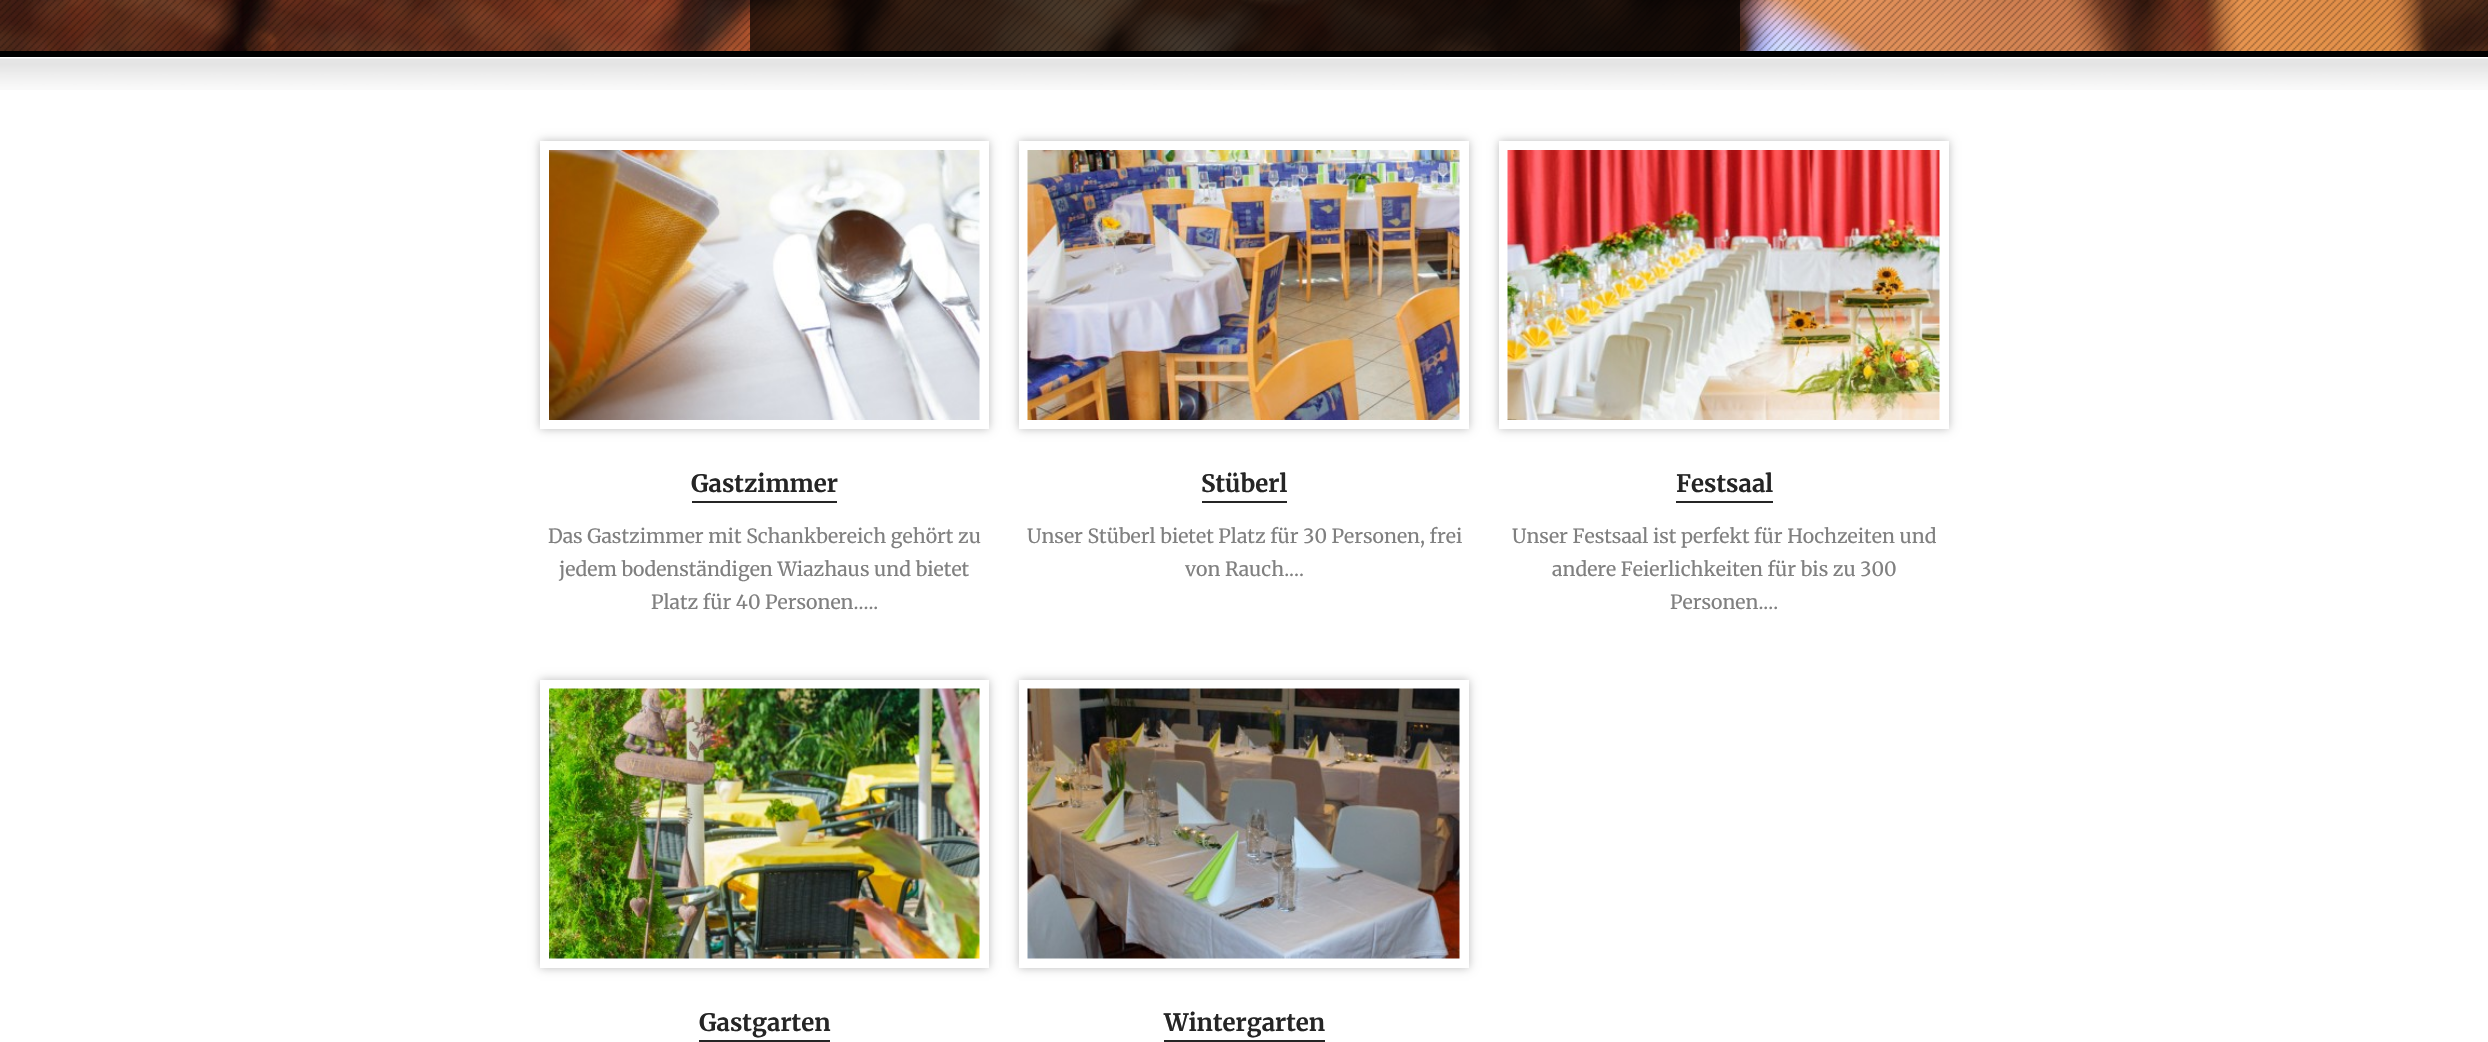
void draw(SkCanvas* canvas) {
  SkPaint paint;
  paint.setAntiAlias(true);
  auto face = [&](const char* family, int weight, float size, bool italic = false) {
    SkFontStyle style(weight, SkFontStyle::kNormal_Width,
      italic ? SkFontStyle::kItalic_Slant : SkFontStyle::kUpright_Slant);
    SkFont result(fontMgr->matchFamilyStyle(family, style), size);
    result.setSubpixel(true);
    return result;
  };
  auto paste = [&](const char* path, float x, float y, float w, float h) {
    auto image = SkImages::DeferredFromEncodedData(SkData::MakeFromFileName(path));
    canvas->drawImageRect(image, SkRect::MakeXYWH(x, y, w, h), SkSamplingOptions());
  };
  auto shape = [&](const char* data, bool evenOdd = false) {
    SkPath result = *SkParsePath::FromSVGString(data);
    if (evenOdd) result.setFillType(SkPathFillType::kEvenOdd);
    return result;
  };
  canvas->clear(0xffffffff);
  paste("img/1.png", 0, 0, 2488, 51);
  paste("img/2.png", 0, 0, 2488, 51);
  paint.setColor(0xff000000);
  canvas->drawRect(SkRect::MakeXYWH(0, 51, 2488, 6), paint);
  paint.setColor(0xb3000000);
  canvas->drawRect(SkRect::MakeXYWH(750, 0, 990, 51), paint);
  paste("img/3.png", 0, 58, 2488, 32);
  canvas->save();
  canvas->clipPath(shape("M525 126H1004V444H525ZM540 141H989V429H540Z", true), true);
  paint.setColor(0xffbbbbbb);
  paint.setMaskFilter(SkMaskFilter::MakeBlur(kNormal_SkBlurStyle, 4.5f));
  canvas->drawRect(SkRect::MakeXYWH(540, 141, 449, 288), paint);
  paint.setMaskFilter(nullptr);
  canvas->restore();
  paste("img/4.png", 549, 150, 431, 270);
  paint.setColor(0xff252525);
  canvas->drawRect(SkRect::MakeXYWH(692, 501, 145, 2), paint);
  canvas->save();
  canvas->clipPath(shape("M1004 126H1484V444H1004ZM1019 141H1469V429H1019Z", true), true);
  paint.setColor(0xffbbbbbb);
  paint.setMaskFilter(SkMaskFilter::MakeBlur(kNormal_SkBlurStyle, 4.5f));
  canvas->drawRect(SkRect::MakeXYWH(1019, 141, 450, 288), paint);
  paint.setMaskFilter(nullptr);
  canvas->restore();
  paste("img/5.png", 1027, 150, 433, 270);
  paint.setColor(0xff252525);
  canvas->drawRect(SkRect::MakeXYWH(1202, 501, 85, 2), paint);
  canvas->save();
  canvas->clipPath(shape("M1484 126H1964V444H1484ZM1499 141H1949V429H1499Z", true), true);
  paint.setColor(0xffbbbbbb);
  paint.setMaskFilter(SkMaskFilter::MakeBlur(kNormal_SkBlurStyle, 4.5f));
  canvas->drawRect(SkRect::MakeXYWH(1499, 141, 450, 288), paint);
  paint.setMaskFilter(nullptr);
  canvas->restore();
  paste("img/6.png", 1507, 150, 433, 270);
  paint.setColor(0xff252525);
  canvas->drawRect(SkRect::MakeXYWH(1676, 501, 97, 2), paint);
  canvas->save();
  canvas->clipPath(shape("M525 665H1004V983H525ZM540 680H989V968H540Z", true), true);
  paint.setColor(0xffbbbbbb);
  paint.setMaskFilter(SkMaskFilter::MakeBlur(kNormal_SkBlurStyle, 4.5f));
  canvas->drawRect(SkRect::MakeXYWH(540, 680, 449, 288), paint);
  paint.setMaskFilter(nullptr);
  canvas->restore();
  paste("img/7.png", 549, 688, 431, 271);
  paint.setColor(0xff252525);
  canvas->drawRect(SkRect::MakeXYWH(699, 1040, 131, 2), paint);
  canvas->save();
  canvas->clipPath(shape("M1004 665H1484V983H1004ZM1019 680H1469V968H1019Z", true), true);
  paint.setColor(0xffbbbbbb);
  paint.setMaskFilter(SkMaskFilter::MakeBlur(kNormal_SkBlurStyle, 4.5f));
  canvas->drawRect(SkRect::MakeXYWH(1019, 680, 450, 288), paint);
  paint.setMaskFilter(nullptr);
  canvas->restore();
  paste("img/8.png", 1027, 688, 433, 271);
  paint.setColor(0xff252525);
  canvas->drawRect(SkRect::MakeXYWH(1164, 1040, 161, 2), paint);
  auto f0 = face("Merriweather", 700, 24);
  canvas->drawString("Gastzimmer", 691, 492, f0, paint);
  auto f1 = face("Merriweather", 400, 19.5f);
  paint.setColor(0xff808080);
  {
    const struct { const char* s; float x, y; } items[] = {
      {"Das Gastzimmer mit Schankbereich gehört zu", 548, 543},
      {"jedem bodenständigen Wiazhaus und bietet", 559, 576},
      {"Platz für 40 Personen.....", 651, 609},
    };
    for (auto [s, x, y] : items) {
      canvas->drawString(s, x, y, f1, paint);
    }
  }
  paint.setColor(0xff252525);
  canvas->drawString("Stüberl", 1201, 492, f0, paint);
  paint.setColor(0xff808080);
  canvas->drawString("Unser Stüberl bietet Platz für 30 Personen, frei", 1027, 543, f1, paint);
  canvas->drawString("von Rauch....", 1185, 576, f1, paint);
  paint.setColor(0xff252525);
  canvas->drawString("Festsaal", 1676, 492, f0, paint);
  paint.setColor(0xff808080);
  {
    const struct { const char* s; float x, y; } items[] = {
      {"Unser Festsaal ist perfekt für Hochzeiten und", 1512, 543},
      {"andere Feierlichkeiten für bis zu 300", 1552, 576},
      {"Personen....", 1670, 609},
    };
    for (auto [s, x, y] : items) {
      canvas->drawString(s, x, y, f1, paint);
    }
  }
  paint.setColor(0xff252525);
  canvas->drawString("Gastgarten", 699, 1031, f0, paint);
  canvas->drawString("Wintergarten", 1164, 1031, f0, paint);
}
